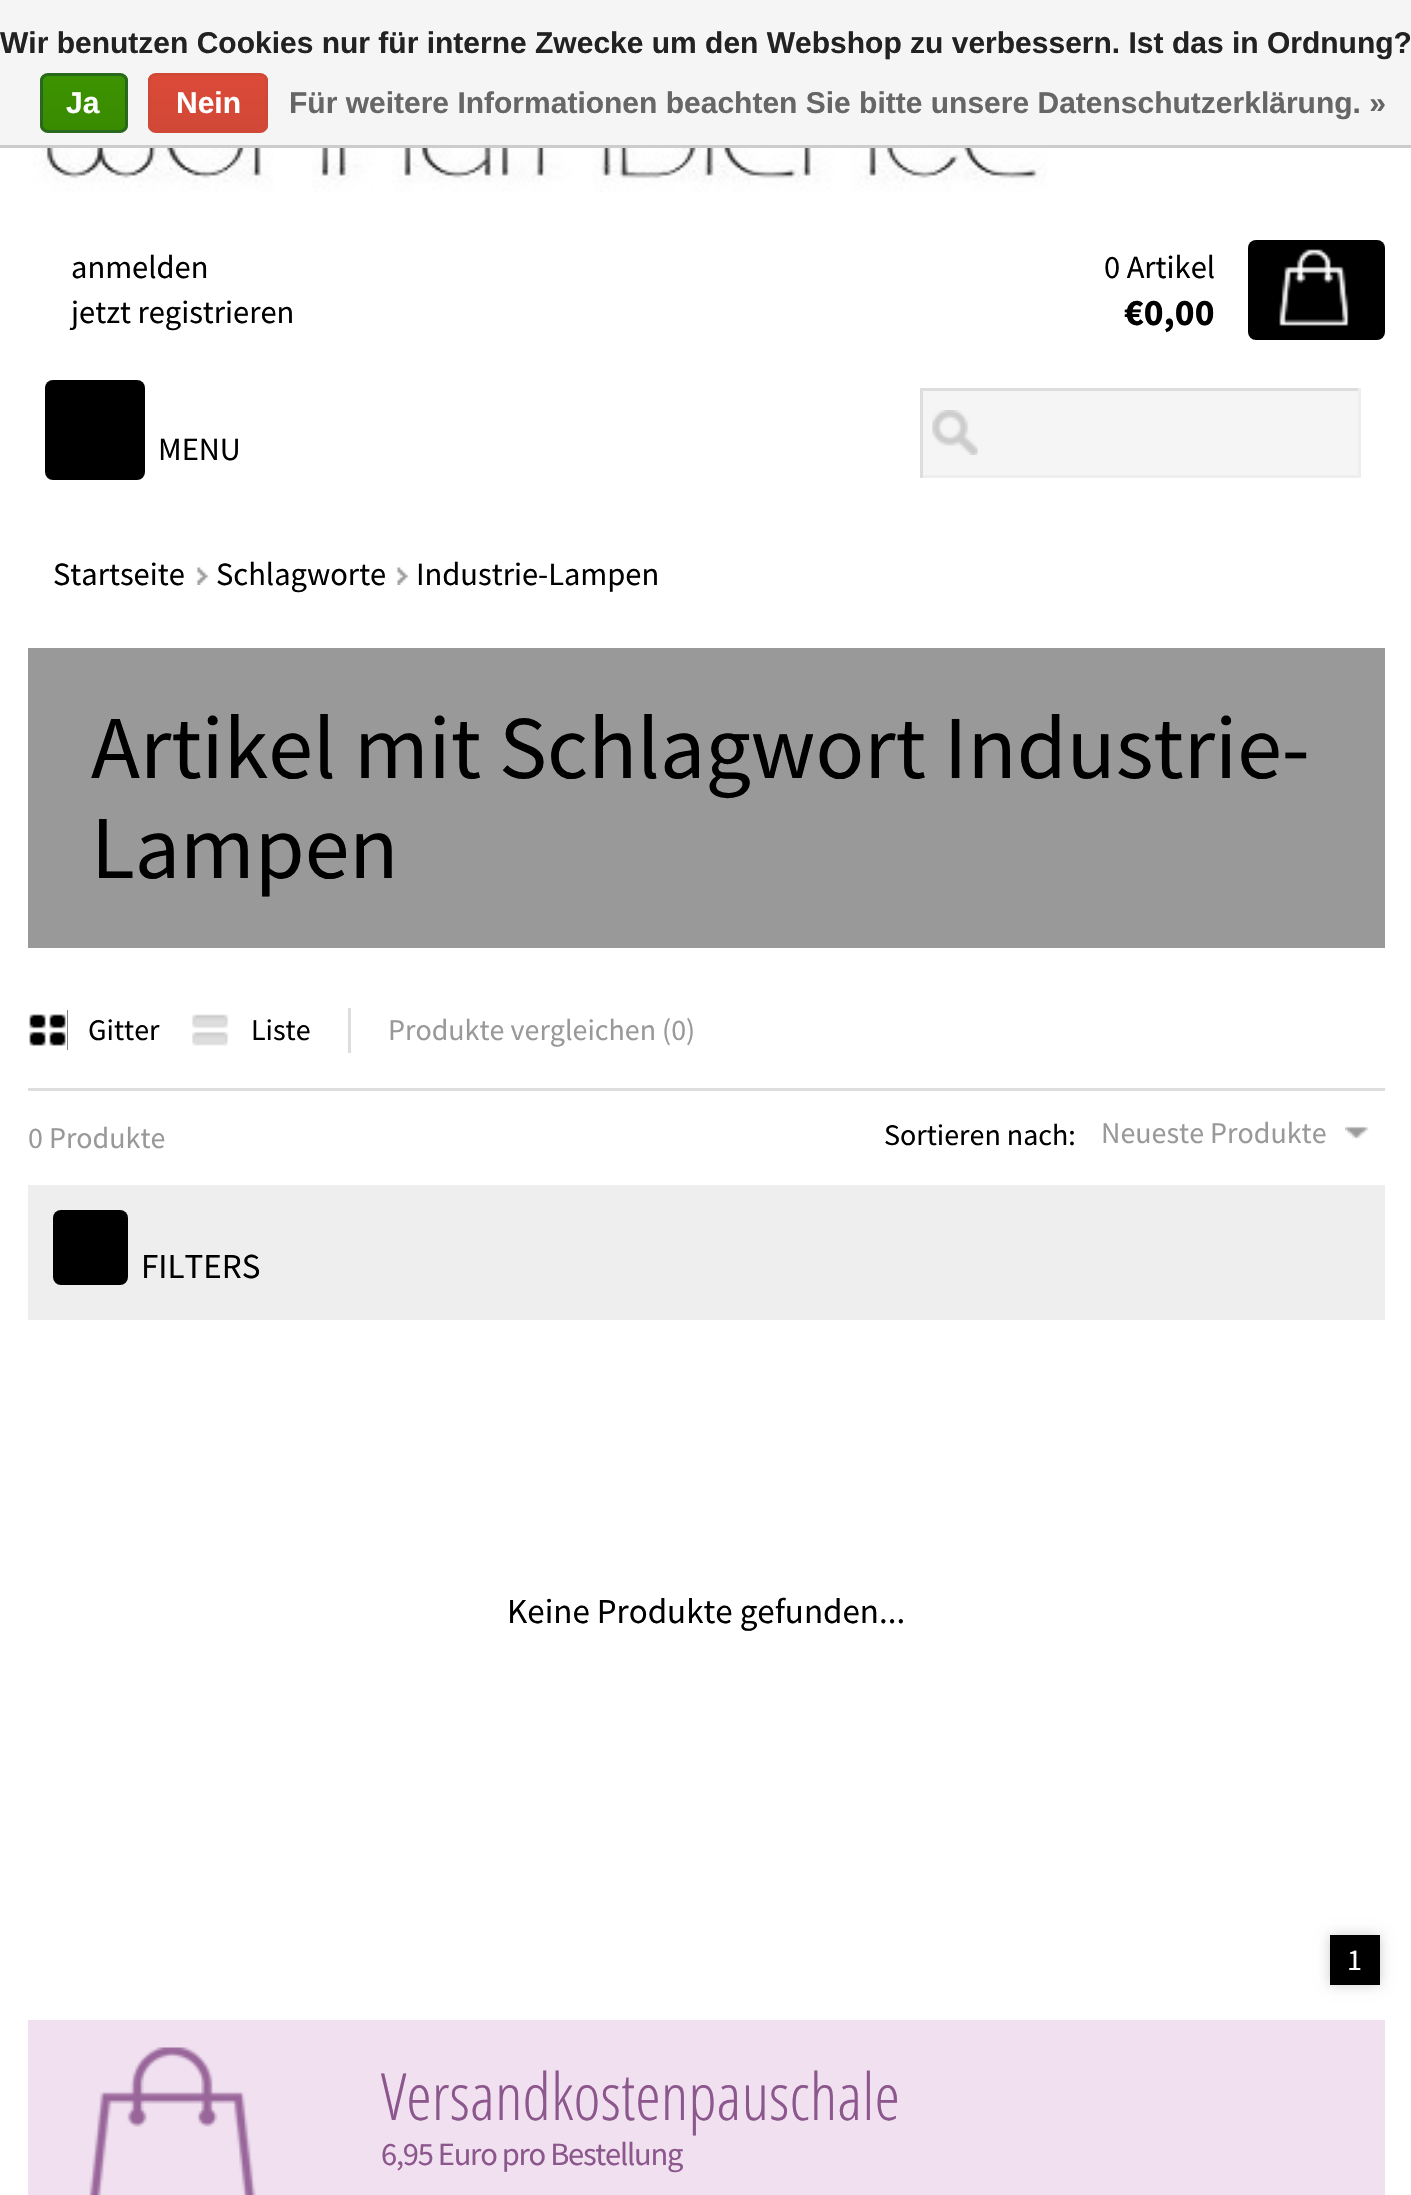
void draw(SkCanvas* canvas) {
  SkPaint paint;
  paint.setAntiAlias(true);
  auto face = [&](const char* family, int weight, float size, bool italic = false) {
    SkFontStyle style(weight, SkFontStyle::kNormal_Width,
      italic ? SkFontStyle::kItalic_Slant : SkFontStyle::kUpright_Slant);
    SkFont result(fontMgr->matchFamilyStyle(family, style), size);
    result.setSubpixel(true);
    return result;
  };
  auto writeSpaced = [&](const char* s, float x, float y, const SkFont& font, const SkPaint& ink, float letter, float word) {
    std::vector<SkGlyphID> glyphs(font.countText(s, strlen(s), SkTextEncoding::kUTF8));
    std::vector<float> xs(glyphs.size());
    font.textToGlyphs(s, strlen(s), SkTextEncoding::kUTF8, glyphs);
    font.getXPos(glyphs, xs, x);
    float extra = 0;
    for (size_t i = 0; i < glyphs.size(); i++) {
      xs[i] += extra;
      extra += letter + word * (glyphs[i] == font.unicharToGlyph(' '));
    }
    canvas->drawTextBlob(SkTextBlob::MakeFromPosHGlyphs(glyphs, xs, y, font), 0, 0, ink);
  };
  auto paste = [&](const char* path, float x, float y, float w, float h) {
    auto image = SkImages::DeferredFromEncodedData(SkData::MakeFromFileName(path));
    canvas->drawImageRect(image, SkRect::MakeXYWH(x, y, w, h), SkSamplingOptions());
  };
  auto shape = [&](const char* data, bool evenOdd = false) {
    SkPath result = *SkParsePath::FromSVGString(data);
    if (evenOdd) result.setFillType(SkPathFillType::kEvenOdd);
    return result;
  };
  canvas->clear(0xffffffff);
  paint.setColor(0xfff5f5f5);
  canvas->drawRect(SkRect::MakeXYWH(0, 0, 1411, 145), paint);
  paint.setColor(0xffcccccc);
  canvas->drawRect(SkRect::MakeXYWH(0, 145, 1411, 3), paint);
  canvas->save();
  canvas->clipPath(shape("M48 73H120C124.5 73 128 76.5 128 81V125C128 129.5 124.5 133 120 133H48C43.5 133 40 129.5 40 125V81C40 76.5 43.5 73 48 73Z"), true);
  {
    const SkColor colors[] = {0xff3c9300, 0xff398a00};
    const float stops[] = {0, 1};
    const SkPoint ends[] = {{84, 75}, {84, 130}};
    paint.setShader(SkGradientShader::MakeLinear(ends, colors, stops, 2, SkTileMode::kClamp));
    paint.setAlpha(255);
  }
  canvas->drawRect(SkRect::MakeXYWH(40, 75, 88, 55), paint);
  canvas->restore();
  paint.setStroke(true);
  paint.setStrokeWidth(3);
  paint.setShader(nullptr);
  paint.setColor(0xff29691d);
  canvas->drawRoundRect(SkRect::MakeXYWH(41.5f, 74.5f, 85, 57), 6.5f, 6.5f, paint);
  canvas->save();
  canvas->clipPath(shape("M156 73H260C264.5 73 268 76.5 268 81V125C268 129.5 264.5 133 260 133H156C151.5 133 148 129.5 148 125V81C148 76.5 151.5 73 156 73Z"), true);
  paint.setStroke(false);
  {
    const SkColor colors[] = {0xffdc4a38, 0xffd14836};
    const float stops[] = {0, 1};
    const SkPoint ends[] = {{208, 75}, {208, 130}};
    paint.setShader(SkGradientShader::MakeLinear(ends, colors, stops, 2, SkTileMode::kClamp));
    paint.setAlpha(255);
  }
  canvas->drawRect(SkRect::MakeXYWH(148, 75, 120, 55), paint);
  canvas->restore();
  paint.setStroke(true);
  paint.setShader(nullptr);
  paint.setColor(0xffd14836);
  canvas->drawRoundRect(SkRect::MakeXYWH(149.5f, 74.5f, 117, 57), 6.5f, 6.5f, paint);
  paste("img/1.png", 33, 148, 1014, 44);
  paint.setStroke(false);
  paint.setColor(0xff000000);
  canvas->drawRoundRect(SkRect::MakeXYWH(1248, 240, 137, 100), 8, 8, paint);
  paste("img/2.png", 1279, 249, 70, 77);
  paint.setColor(0xfff5f5f5);
  canvas->drawRect(SkRect::MakeXYWH(923, 391, 435, 84), paint);
  paste("img/3.png", 932, 410, 46, 45);
  {
    const struct { float x, y, w, h; SkColor color; } items[] = {
      {920, 388, 440, 3, 0xffdddddd},
      {1358, 388, 3, 90, 0xffeeeeee},
      {920, 475, 440, 3, 0xffeeeeee},
      {920, 388, 3, 90, 0xffdddddd},
    };
    for (auto [x, y, w, h, color] : items) {
      paint.setColor(color);
      canvas->drawRect(SkRect::MakeXYWH(x, y, w, h), paint);
    }
  }
  paint.setColor(0xff000000);
  canvas->drawRoundRect(SkRect::MakeXYWH(45, 380, 100, 100), 8, 8, paint);
  paste("img/4.png", 196, 567, 13, 18);
  paste("img/5.png", 396, 567, 13, 18);
  {
    const struct { float x, y, w, h; SkColor color; } items[] = {
      {28, 648, 1357, 300, 0xff999999},
      {28, 1088, 1357, 3, 0xffdddddd},
      {29, 1010, 39, 40, 0xff000000},
    };
    for (auto [x, y, w, h, color] : items) {
      paint.setColor(color);
      canvas->drawRect(SkRect::MakeXYWH(x, y, w, h), paint);
    }
  }
  paste("img/6.png", 28, 1010, 40, 40);
  paint.setColor(0xffdddddd);
  canvas->drawRect(SkRect::MakeXYWH(191, 1014, 38, 32), paint);
  paste("img/7.png", 190, 1010, 40, 40);
  canvas->drawRect(SkRect::MakeXYWH(348, 1008, 3, 45), paint);
  paste("img/8.png", 1345, 1126, 24, 13);
  paint.setColor(0xffeeeeee);
  canvas->drawRect(SkRect::MakeXYWH(28, 1185, 1357, 135), paint);
  paint.setColor(0xff000000);
  canvas->drawRoundRect(SkRect::MakeXYWH(53, 1210, 75, 75), 8, 8, paint);
  paint.setColor(0xffcccccc);
  paint.setMaskFilter(SkMaskFilter::MakeBlur(kNormal_SkBlurStyle, 6));
  canvas->drawRect(SkRect::MakeXYWH(1330, 1935, 50, 50), paint);
  paint.setMaskFilter(nullptr);
  paint.setColor(0xff000000);
  canvas->drawRect(SkRect::MakeXYWH(1330, 1935, 50, 50), paint);
  paint.setColor(0xfff0e0f0);
  canvas->drawRect(SkRect::MakeXYWH(28, 2020, 1357, 175), paint);
  paste("img/9.png", 89, 2047, 167, 148);
  auto f0 = face("Liberation Sans", 700, 30);
  paint.setColor(0xff222222);
  canvas->drawString("Wir benutzen Cookies nur für interne Zwecke um den Webshop zu verbessern. Ist das in Ordnung?", 0, 53, f0, paint);
  paint.setColor(0xffffffff);
  canvas->drawString("Ja", 66, 113, f0, paint);
  canvas->drawString("Nein", 176, 113, f0, paint);
  paint.setColor(0xff666666);
  canvas->drawString("Für weitere Informationen beachten Sie bitte unsere Datenschutzerklärung. »", 289, 113, f0, paint);
  auto f1 = face("Source Sans Pro", 400, 32.5f);
  paint.setColor(0xff000000);
  {
    const struct { const char* s; float x, y; } items[] = {
      {"anmelden", 71, 278},
      {"jetzt registrieren", 71, 323},
      {"0 Artikel", 1104, 278},
    };
    for (auto [s, x, y] : items) {
      canvas->drawString(s, x, y, f1, paint);
    }
  }
  auto f2 = face("Source Sans Pro", 700, 37.5f);
  canvas->drawString("€0,00", 1124, 325, f2, paint);
  {
    const struct { const char* s; float x, y; } items[] = {
      {"MENU", 158, 460},
      {"Startseite", 53, 585},
      {"Schlagworte", 216, 585},
      {"Industrie-Lampen", 416, 585},
    };
    for (auto [s, x, y] : items) {
      canvas->drawString(s, x, y, f1, paint);
    }
  }
  auto f3 = face("Source Sans Pro", 400, 90);
  canvas->drawString("Artikel mit Schlagwort Industrie-", 91, 778, f3, paint);
  canvas->drawString("Lampen", 91, 878, f3, paint);
  auto f4 = face("Source Sans Pro", 400, 30);
  canvas->drawString("Gitter", 88, 1040, f4, paint);
  canvas->drawString("Liste", 251, 1040, f4, paint);
  paint.setColor(0xff999999);
  canvas->drawString("Produkte vergleichen (0)", 388, 1040, f4, paint);
  paint.setColor(0xff000000);
  canvas->drawString("Sortieren nach:", 884, 1145, f4, paint);
  paint.setColor(0xff999999);
  canvas->drawString("Neueste Produkte", 1101, 1143, f4, paint);
  canvas->drawString("0 Produkte", 28, 1148, f4, paint);
  auto f5 = face("Source Sans Pro", 400, 35);
  paint.setColor(0xff000000);
  canvas->drawString("FILTERS", 141, 1278, f5, paint);
  canvas->drawString("Keine Produkte gefunden...", 507, 1623, f5, paint);
  paint.setColor(0xffffffff);
  canvas->drawString("1", 1347, 1970, f4, paint);
  auto f6 = face("Open Sans Condensed", 300, 65);
  paint.setColor(0xff8c578c);
  canvas->drawString("Versandkostenpauschale", 381, 2120, f6, paint);
  writeSpaced("6,95 Euro pro Bestellung", 381, 2165, f1, paint, -1.25f, 0);
}
